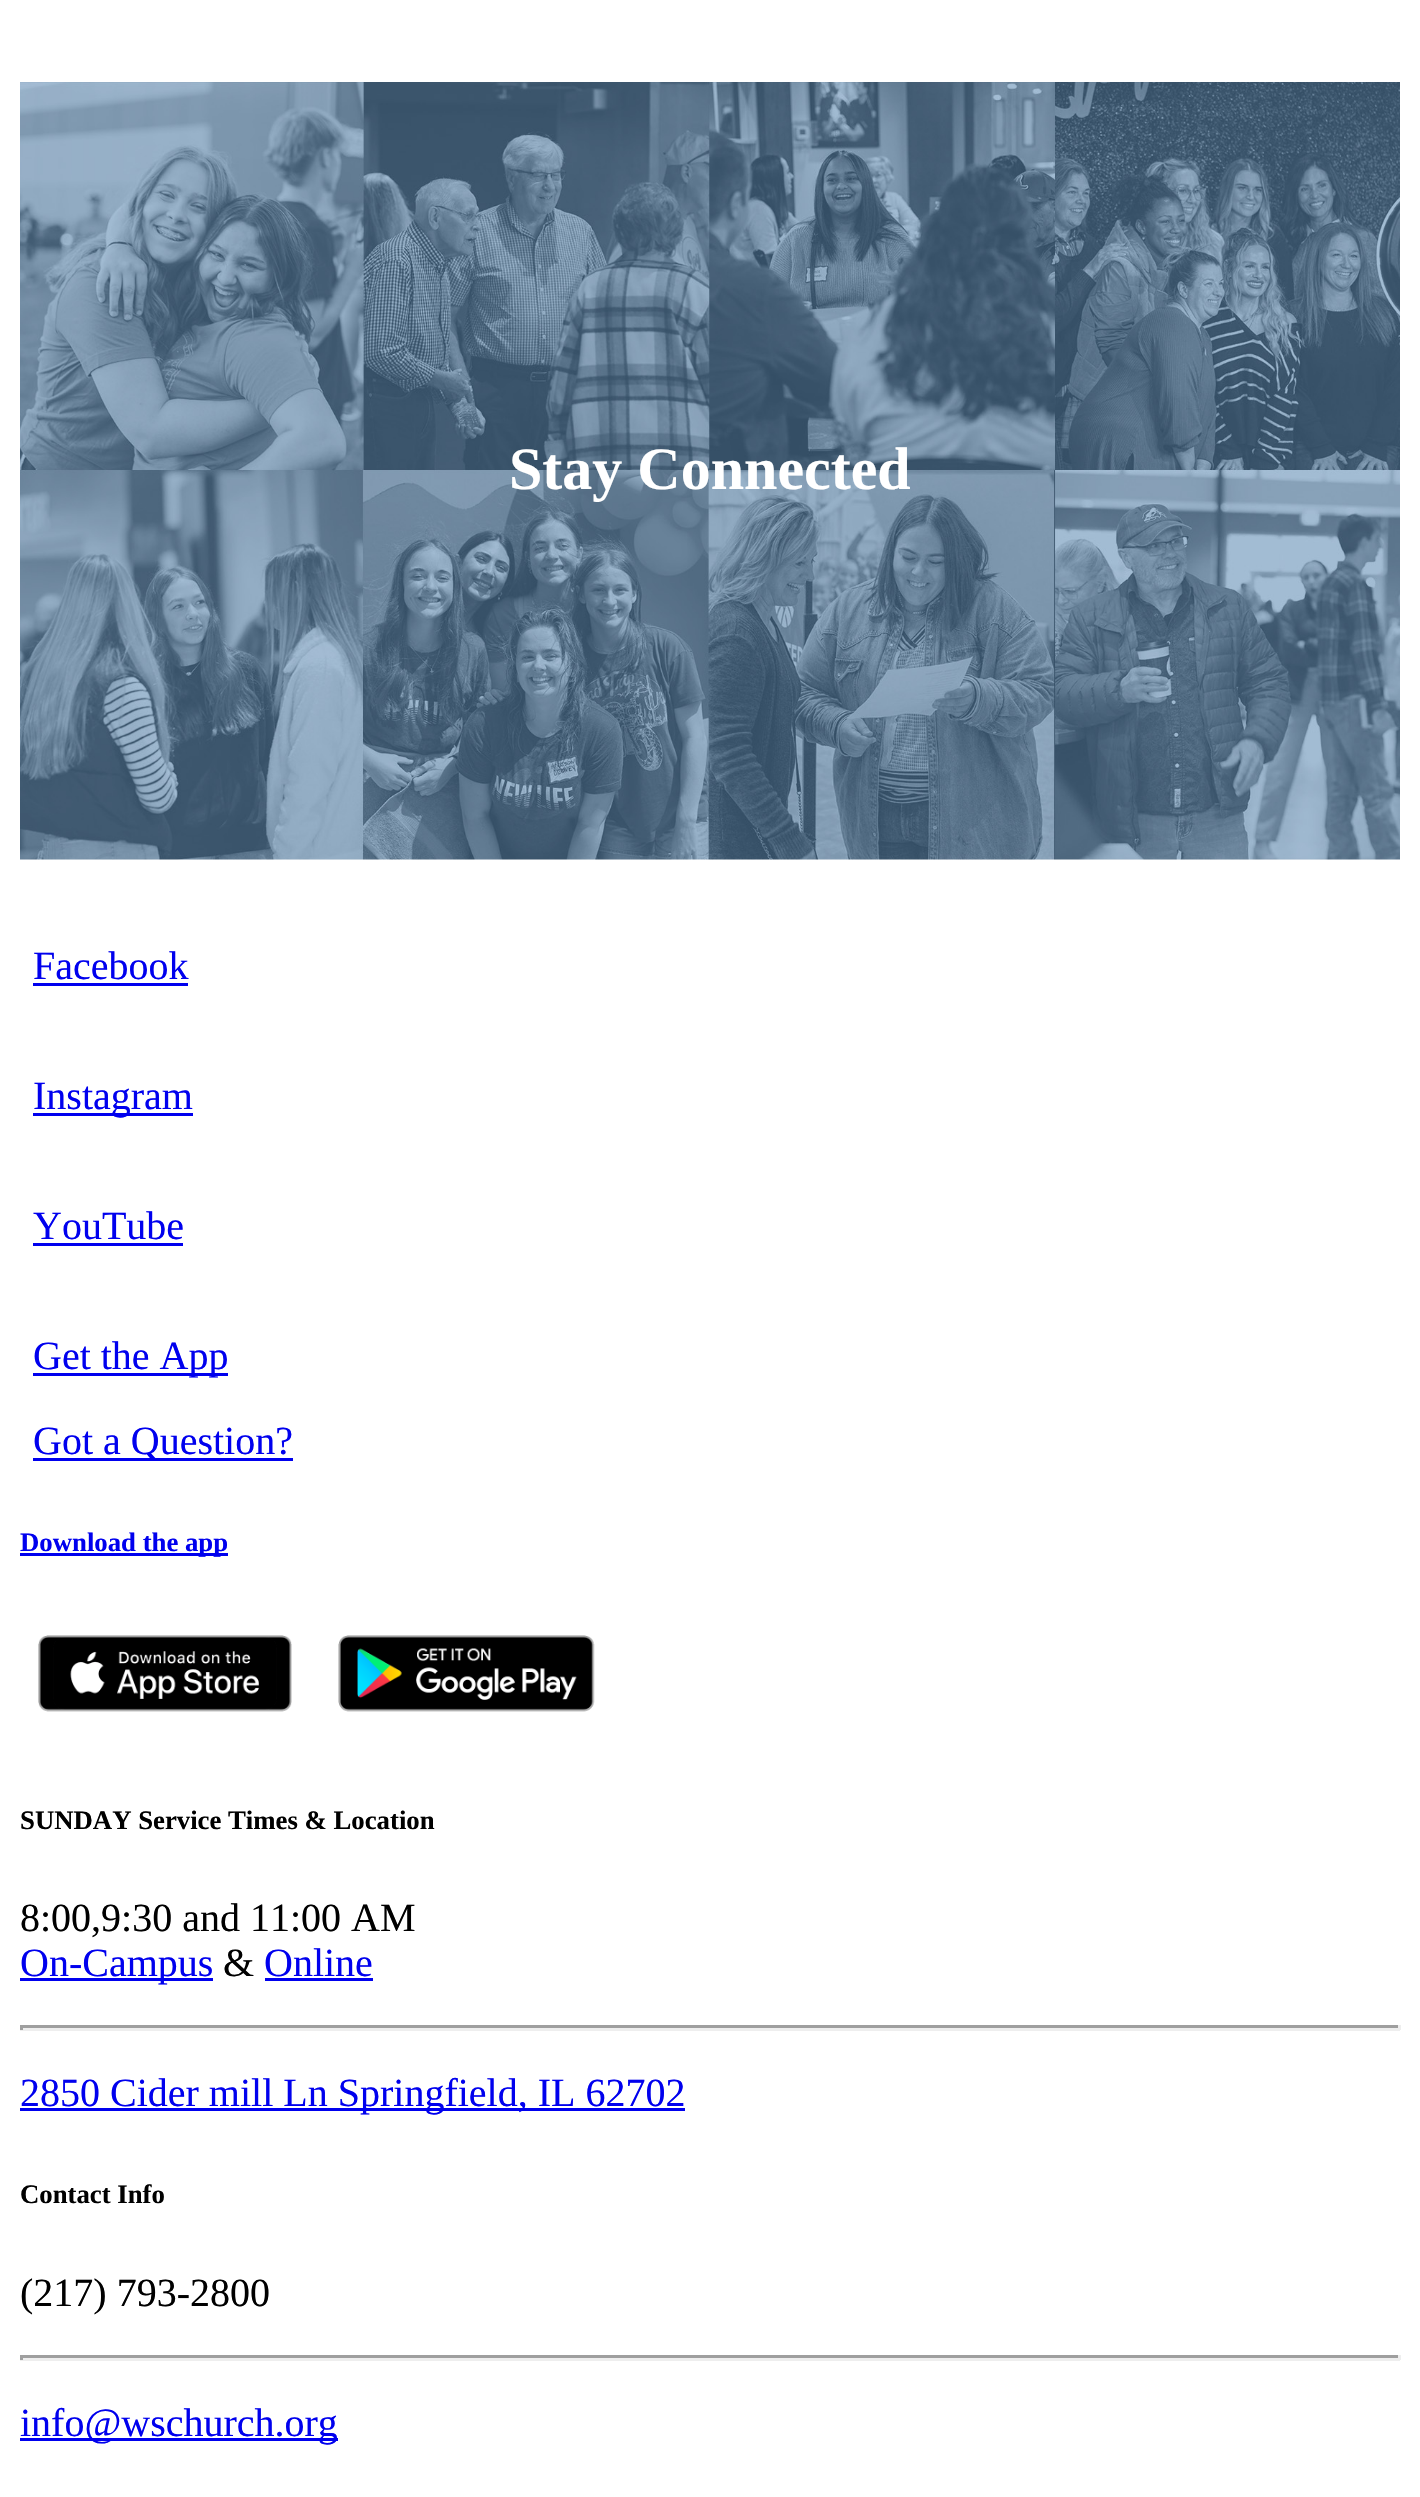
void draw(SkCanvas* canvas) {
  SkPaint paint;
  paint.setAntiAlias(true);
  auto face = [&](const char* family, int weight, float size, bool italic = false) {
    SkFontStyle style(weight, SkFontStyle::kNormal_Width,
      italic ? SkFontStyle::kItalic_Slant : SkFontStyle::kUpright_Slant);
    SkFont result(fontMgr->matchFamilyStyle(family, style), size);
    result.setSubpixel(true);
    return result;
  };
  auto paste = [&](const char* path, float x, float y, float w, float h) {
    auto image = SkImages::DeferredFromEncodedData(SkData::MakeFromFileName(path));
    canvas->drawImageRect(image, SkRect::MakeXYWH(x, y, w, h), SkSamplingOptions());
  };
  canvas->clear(0xffffffff);
  paste("img/1.png", 20, 82, 1380, 778);
  {
    const struct { float x, y, w, h; SkColor color; } items[] = {
      {33, 983, 155, 3, 0xff0000ee},
      {33, 1113, 160, 3, 0xff0000ee},
      {33, 1243, 150, 3, 0xff0000ee},
      {33, 1373, 195, 3, 0xff0000ee},
      {33, 1458, 260, 3, 0xff0000ee},
      {20, 1553, 208, 3, 0xff0000ee},
    };
    for (auto [x, y, w, h, color] : items) {
      paint.setColor(color);
      canvas->drawRect(SkRect::MakeXYWH(x, y, w, h), paint);
    }
  }
  paste("img/2.png", 38, 1635, 254, 77);
  paste("img/3.png", 338, 1635, 257, 77);
  {
    const struct { float x, y, w, h; SkColor color; } items[] = {
      {20, 1978, 193, 3, 0xff0000ee},
      {265, 1978, 108, 3, 0xff0000ee},
      {20, 2025, 1380, 3, 0xff9f9f9f},
      {1398, 2025, 3, 5, 0xffeeeeee},
      {20, 2028, 1380, 3, 0xffeeeeee},
      {20, 2025, 3, 5, 0xff9f9f9f},
      {20, 2108, 665, 3, 0xff0000ee},
      {20, 2355, 1380, 3, 0xff9f9f9f},
      {1398, 2355, 3, 5, 0xffeeeeee},
      {20, 2358, 1380, 3, 0xffeeeeee},
      {20, 2355, 3, 5, 0xff9f9f9f},
      {20, 2438, 318, 3, 0xff0000ee},
    };
    for (auto [x, y, w, h, color] : items) {
      paint.setColor(color);
      canvas->drawRect(SkRect::MakeXYWH(x, y, w, h), paint);
    }
  }
  auto f0 = face("Liberation Serif", 700, 60);
  paint.setColor(0xffffffff);
  canvas->drawString("Stay Connected", 509, 489, f0, paint);
  auto f1 = face("Liberation Serif", 400, 40);
  paint.setColor(0xff0000ee);
  {
    const struct { const char* s; float x, y; } items[] = {
      {"Facebook", 33, 979},
      {"Instagram", 33, 1109},
      {"YouTube", 33, 1239},
      {"Get the App", 33, 1369},
      {"Got a Question?", 33, 1454},
    };
    for (auto [s, x, y] : items) {
      canvas->drawString(s, x, y, f1, paint);
    }
  }
  auto f2 = face("Liberation Serif", 700, 26.75f);
  canvas->drawString("Download the app", 20, 1551, f2, paint);
  paint.setColor(0xff000000);
  canvas->drawString("SUNDAY Service Times & Location", 20, 1829, f2, paint);
  canvas->drawString("8:00,9:30 and 11:00 AM", 20, 1931, f1, paint);
  paint.setColor(0xff0000ee);
  canvas->drawString("On-Campus", 20, 1976, f1, paint);
  paint.setColor(0xff000000);
  canvas->drawString("&", 223, 1976, f1, paint);
  paint.setColor(0xff0000ee);
  canvas->drawString("Online", 264, 1976, f1, paint);
  canvas->drawString("2850 Cider mill Ln Springfield, IL 62702", 20, 2106, f1, paint);
  paint.setColor(0xff000000);
  canvas->drawString("Contact Info", 20, 2203, f2, paint);
  canvas->drawString("(217) 793-2800", 20, 2306, f1, paint);
  paint.setColor(0xff0000ee);
  canvas->drawString("info@wschurch.org", 20, 2436, f1, paint);
}
